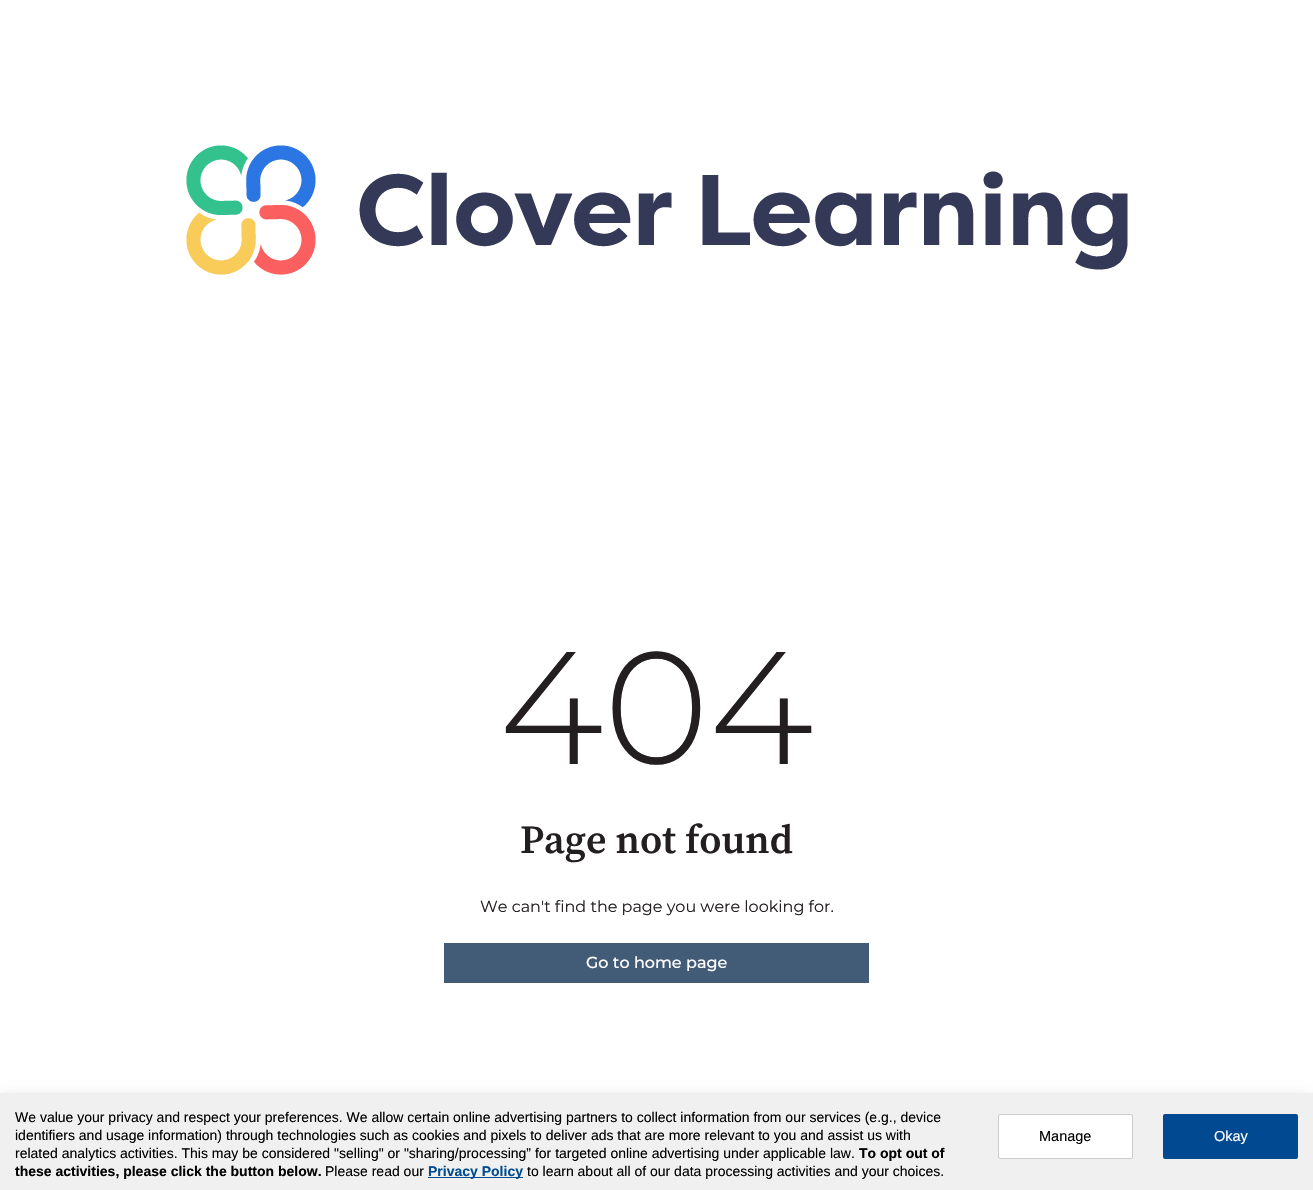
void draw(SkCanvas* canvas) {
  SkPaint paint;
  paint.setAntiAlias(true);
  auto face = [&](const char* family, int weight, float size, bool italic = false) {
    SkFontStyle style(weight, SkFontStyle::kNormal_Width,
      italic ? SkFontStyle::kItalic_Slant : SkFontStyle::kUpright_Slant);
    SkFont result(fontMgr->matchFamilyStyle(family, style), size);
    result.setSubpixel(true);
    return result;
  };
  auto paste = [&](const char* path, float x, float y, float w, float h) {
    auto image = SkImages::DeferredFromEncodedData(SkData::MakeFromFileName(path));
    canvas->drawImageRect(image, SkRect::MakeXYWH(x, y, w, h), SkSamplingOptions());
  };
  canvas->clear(0xffffffff);
  paste("img/1.png", 186, 145, 942, 130);
  paint.setColor(0xff425b76);
  canvas->drawRect(SkRect::MakeXYWH(444, 943, 425, 40), paint);
  paint.setColor(0x26000000);
  paint.setMaskFilter(SkMaskFilter::MakeBlur(kNormal_SkBlurStyle, 6));
  canvas->drawRect(SkRect::MakeXYWH(0, 1097, 1313, 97), paint);
  paint.setMaskFilter(nullptr);
  paint.setColor(0xfff0f0f0);
  canvas->drawRect(SkRect::MakeXYWH(0, 1093, 1313, 97), paint);
  paint.setColor(0xff004b91);
  canvas->drawRect(SkRect::MakeXYWH(428, 1177, 95, 1), paint);
  paint.setColor(0xffffffff);
  canvas->drawRoundRect(SkRect::MakeXYWH(998.5f, 1114.5f, 134, 44), 1.5f, 1.5f, paint);
  paint.setStroke(true);
  paint.setStrokeWidth(1);
  paint.setColor(0xffcccccc);
  canvas->drawRoundRect(SkRect::MakeXYWH(998.5f, 1114.5f, 134, 44), 1.5f, 1.5f, paint);
  paint.setStroke(false);
  paint.setColor(0xff014a91);
  canvas->drawRoundRect(SkRect::MakeXYWH(1163, 1114, 135, 45), 2, 2, paint);
  auto f0 = face("Montserrat", 300, 160);
  paint.setColor(0xff231f20);
  canvas->drawString("404", 499, 764, f0, paint);
  auto f1 = face("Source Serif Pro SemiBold", 600, 40);
  canvas->drawString("Page not found", 520, 853, f1, paint);
  auto f2 = face("Montserrat", 400, 16);
  canvas->drawString("We can't find the page you were looking for.", 480, 912, f2, paint);
  auto f3 = face("Montserrat", 500, 16);
  paint.setColor(0xffffffff);
  canvas->drawString("Go to home page", 586, 968, f3, paint);
  auto f4 = face("Liberation Sans", 400, 14);
  paint.setColor(0xff000000);
  {
    const struct { const char* s; float x, y; } items[] = {
      {"We value your privacy and respect your preferences. We allow certain online advertising partners to collect information from our services (e.g., device", 15, 1122},
      {"identifiers and usage information) through technologies such as cookies and pixels to deliver ads that are more relevant to you and assist us with", 15, 1140},
      {"related analytics activities. This may be considered \"selling\" or \"sharing/processing” for targeted online advertising under applicable law.", 15, 1158},
    };
    for (auto [s, x, y] : items) {
      canvas->drawString(s, x, y, f4, paint);
    }
  }
  auto f5 = face("Liberation Sans", 700, 14);
  canvas->drawString("To opt out of", 859, 1158, f5, paint);
  canvas->drawString("these activities, please click the button below.", 15, 1176, f5, paint);
  canvas->drawString("Please read our", 325, 1176, f4, paint);
  paint.setColor(0xff004b91);
  canvas->drawString("Privacy Policy", 428, 1176, f5, paint);
  paint.setColor(0xff000000);
  canvas->drawString("to learn about all of our data processing activities and your choices.", 527, 1176, f4, paint);
  auto f6 = face("Liberation Sans", 400, 14.5f);
  canvas->drawString("Manage", 1039, 1141, f6, paint);
  paint.setColor(0xffffffff);
  canvas->drawString("Okay", 1214, 1141, f6, paint);
}
